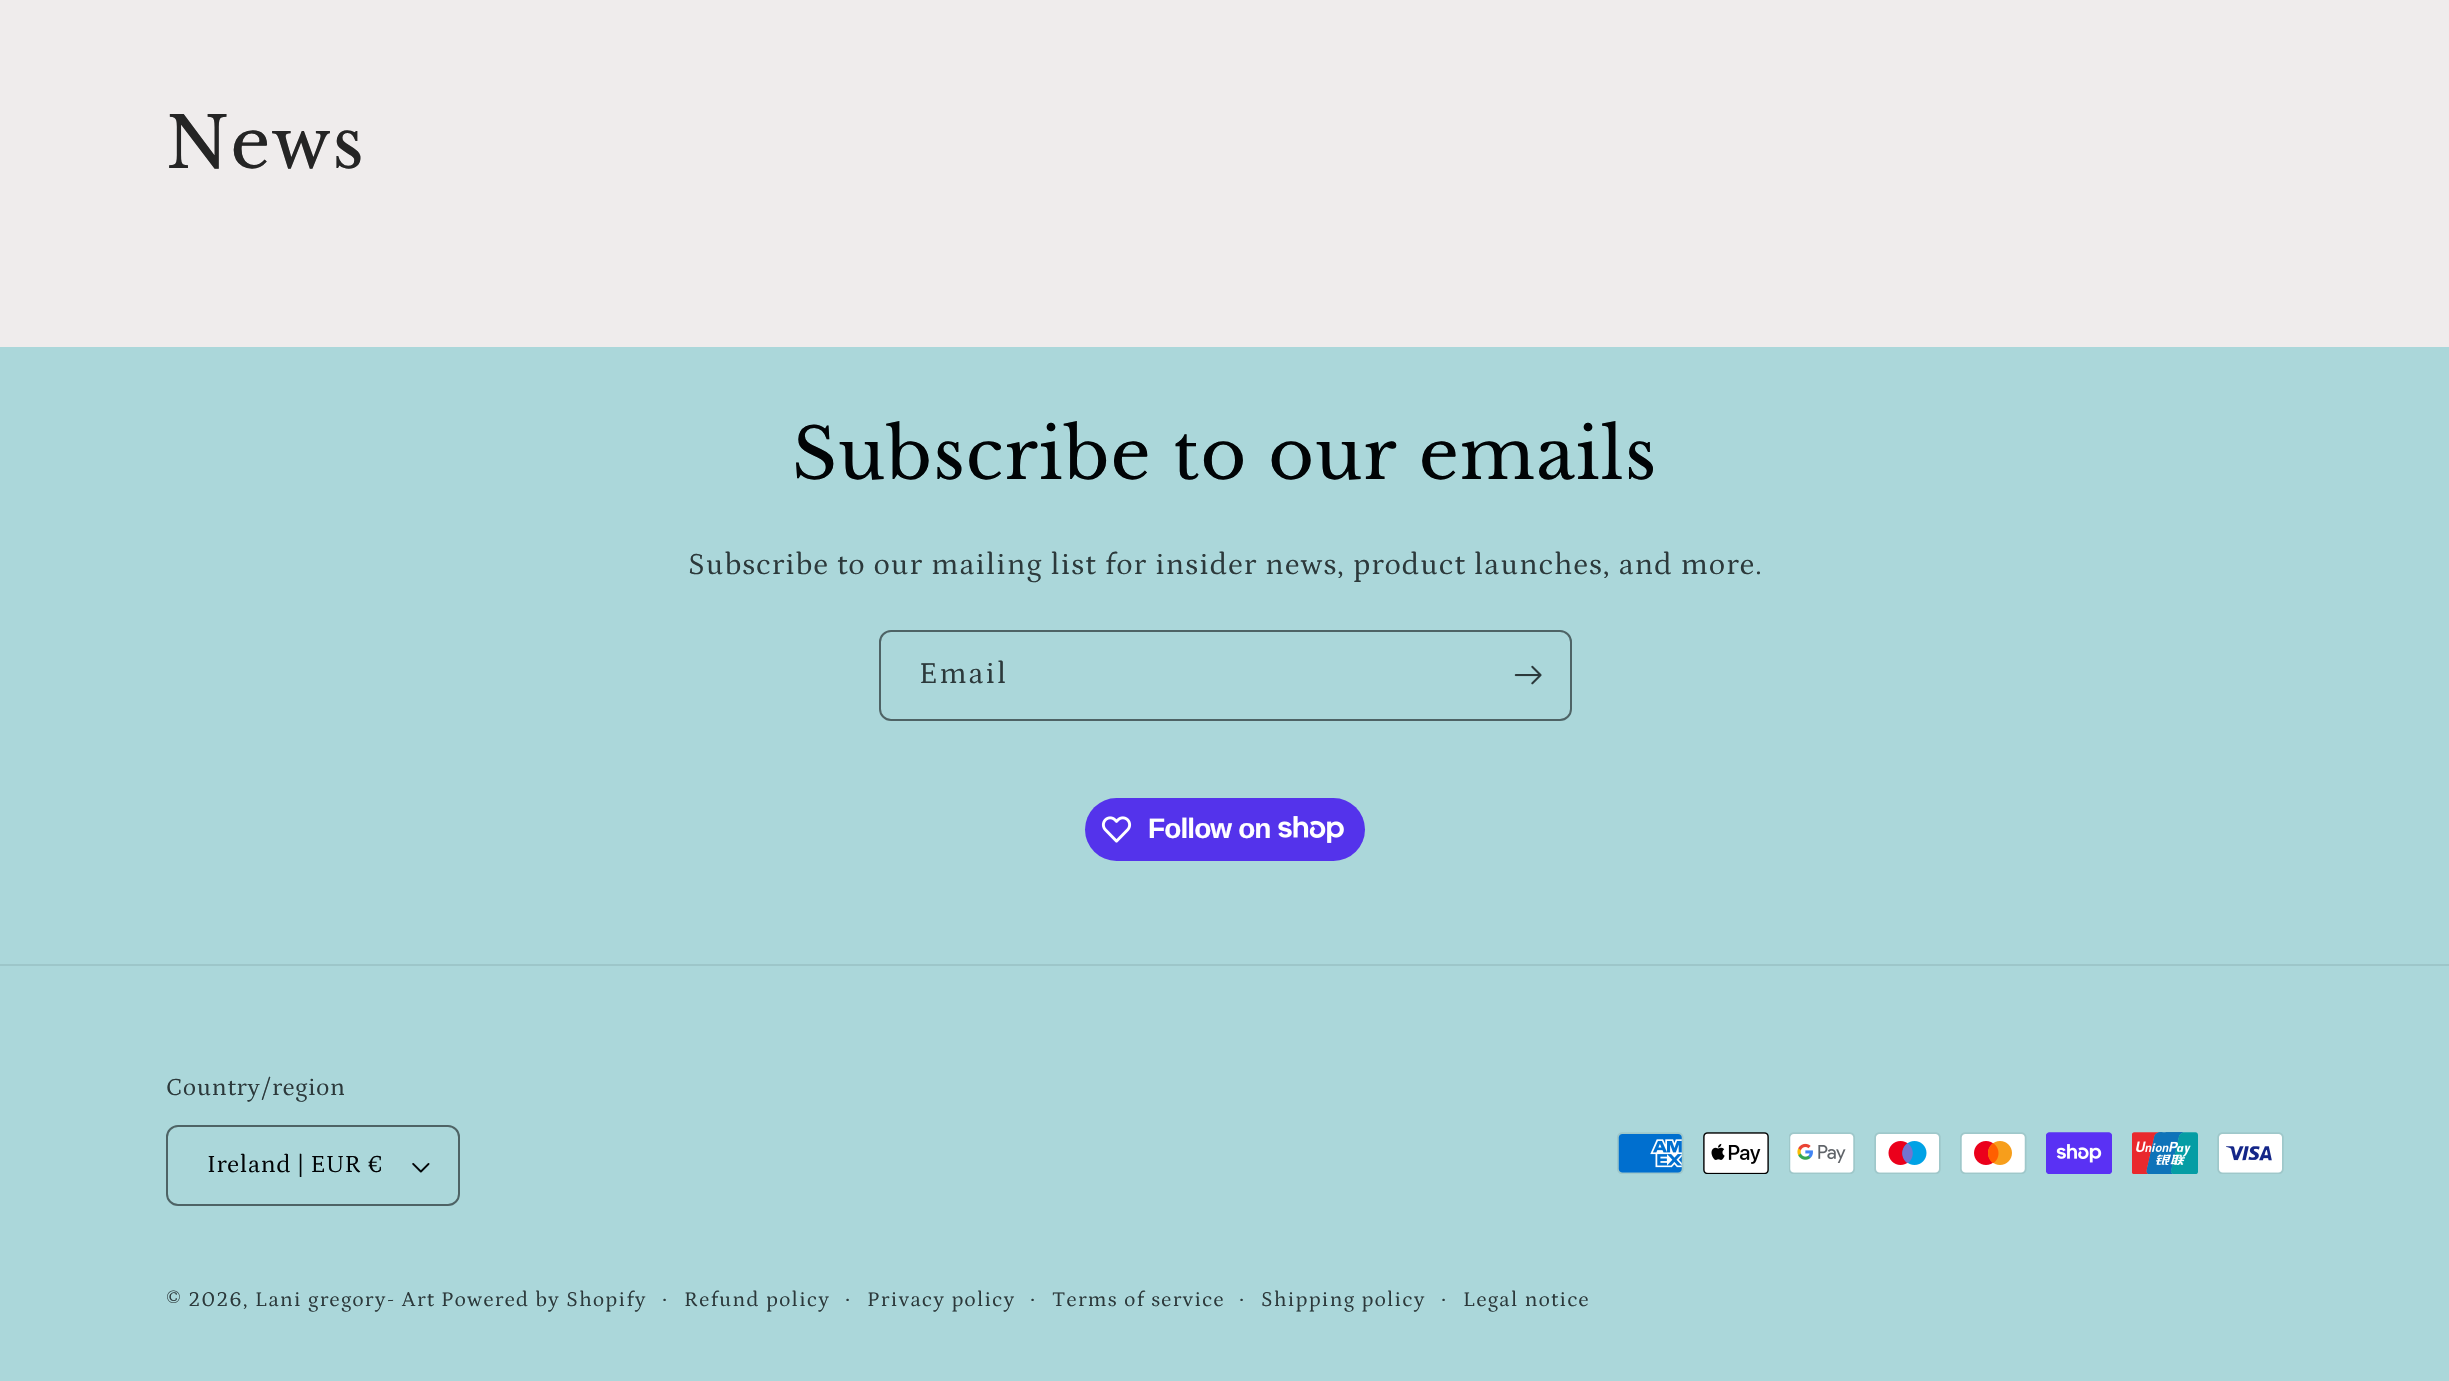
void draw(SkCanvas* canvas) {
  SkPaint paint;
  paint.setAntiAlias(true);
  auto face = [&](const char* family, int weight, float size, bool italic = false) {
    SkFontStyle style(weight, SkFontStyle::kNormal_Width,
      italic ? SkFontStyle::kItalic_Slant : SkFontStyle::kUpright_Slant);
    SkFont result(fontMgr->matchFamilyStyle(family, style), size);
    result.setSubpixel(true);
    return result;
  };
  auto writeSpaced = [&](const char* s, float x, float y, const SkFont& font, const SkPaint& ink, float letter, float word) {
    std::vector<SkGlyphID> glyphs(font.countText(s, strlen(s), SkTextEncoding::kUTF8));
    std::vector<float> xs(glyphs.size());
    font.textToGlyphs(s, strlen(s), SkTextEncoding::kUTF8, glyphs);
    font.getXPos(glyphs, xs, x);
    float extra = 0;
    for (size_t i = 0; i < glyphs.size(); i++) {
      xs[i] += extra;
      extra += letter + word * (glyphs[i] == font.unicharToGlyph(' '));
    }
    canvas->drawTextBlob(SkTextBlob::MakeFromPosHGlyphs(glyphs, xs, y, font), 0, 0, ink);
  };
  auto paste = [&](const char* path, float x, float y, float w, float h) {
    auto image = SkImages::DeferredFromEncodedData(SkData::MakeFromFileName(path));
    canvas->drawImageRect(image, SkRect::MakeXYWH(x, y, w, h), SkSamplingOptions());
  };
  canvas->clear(0xffefecec);
  paint.setColor(0xffabd7da);
  canvas->drawRect(SkRect::MakeXYWH(0, 347, 2449, 1034), paint);
  paint.setStroke(true);
  paint.setStrokeWidth(2);
  paint.setColor(0xff4e6365);
  canvas->drawRoundRect(SkRect::MakeXYWH(880, 631, 691, 89), 11, 11, paint);
  paste("img/1.png", 1514, 665, 28, 20);
  paint.setStroke(false);
  paint.setColor(0xff5433eb);
  canvas->drawRoundRect(SkRect::MakeXYWH(1085, 798, 280, 63), 31.5f, 31.5f, paint);
  paste("img/2.png", 1101, 816, 31, 27);
  paste("img/3.png", 1278, 816, 66, 27);
  paint.setColor(0xff9dc6c9);
  canvas->drawRect(SkRect::MakeXYWH(0, 964, 2449, 2), paint);
  paste("img/4.png", 412, 1163, 18, 10);
  paint.setStroke(true);
  paint.setColor(0xff4e6365);
  canvas->drawRoundRect(SkRect::MakeXYWH(167, 1126, 292, 79), 11, 11, paint);
  paste("img/5.png", 1617, 1132, 67, 42);
  paste("img/6.png", 1703, 1132, 66, 42);
  paste("img/7.png", 1789, 1132, 66, 42);
  paste("img/8.png", 1874, 1132, 67, 42);
  paste("img/9.png", 1960, 1132, 67, 42);
  paste("img/10.png", 2046, 1132, 66, 42);
  paste("img/11.png", 2132, 1132, 66, 42);
  paste("img/12.png", 2217, 1132, 67, 42);
  auto f0 = face("Libre Baskerville", 400, 70);
  paint.setStroke(false);
  paint.setColor(0xff252525);
  writeSpaced("News", 166, 168, f0, paint, 1.05f, 0);
  paint.setColor(0xff010406);
  writeSpaced("Subscribe to our emails", 792, 479, f0, paint, 1.05f, 0);
  auto f1 = face("Petrona", 400, 30.8f);
  paint.setColor(0xff2c393b);
  writeSpaced("Subscribe to our mailing list for insider news, product launches, and more.", 688, 574, f1, paint, 1.15f, 0);
  writeSpaced("Email", 919, 683, f1, paint, 2, 0);
  auto f2 = face("Liberation Sans", 700, 28);
  paint.setColor(0xffffffff);
  writeSpaced("Follow on", 1148, 838, f2, paint, -0.9f, 0);
  auto f3 = face("Petrona", 400, 25);
  paint.setColor(0xff2c393b);
  writeSpaced("Country/region", 166, 1095, f3, paint, 0.75f, 0);
  paint.setColor(0xff010406);
  writeSpaced("Ireland | EUR €", 207, 1172, f3, paint, 0.75f, 0);
  auto f4 = face("Petrona", 400, 21.25f);
  paint.setColor(0xff2c393b);
  writeSpaced("© 2026, Lani gregory- Art", 166, 1306, f4, paint, 1.35f, 0);
  writeSpaced("Powered by Shopify", 441, 1306, f4, paint, 1.35f, 0);
  auto f5 = face("Petrona", 400, 23);
  writeSpaced("·", 662, 1306, f5, paint, 1.35f, 0);
  writeSpaced("Refund policy", 684, 1306, f4, paint, 1.35f, 0);
  writeSpaced("·", 845, 1306, f5, paint, 1.35f, 0);
  writeSpaced("Privacy policy", 867, 1306, f4, paint, 1.35f, 0);
  writeSpaced("·", 1030, 1306, f5, paint, 1.35f, 0);
  writeSpaced("Terms of service", 1052, 1306, f4, paint, 1.35f, 0);
  writeSpaced("·", 1239, 1306, f5, paint, 1.35f, 0);
  writeSpaced("Shipping policy", 1261, 1306, f4, paint, 1.35f, 0);
  writeSpaced("·", 1441, 1306, f5, paint, 1.35f, 0);
  writeSpaced("Legal notice", 1463, 1306, f4, paint, 1.35f, 0);
}
